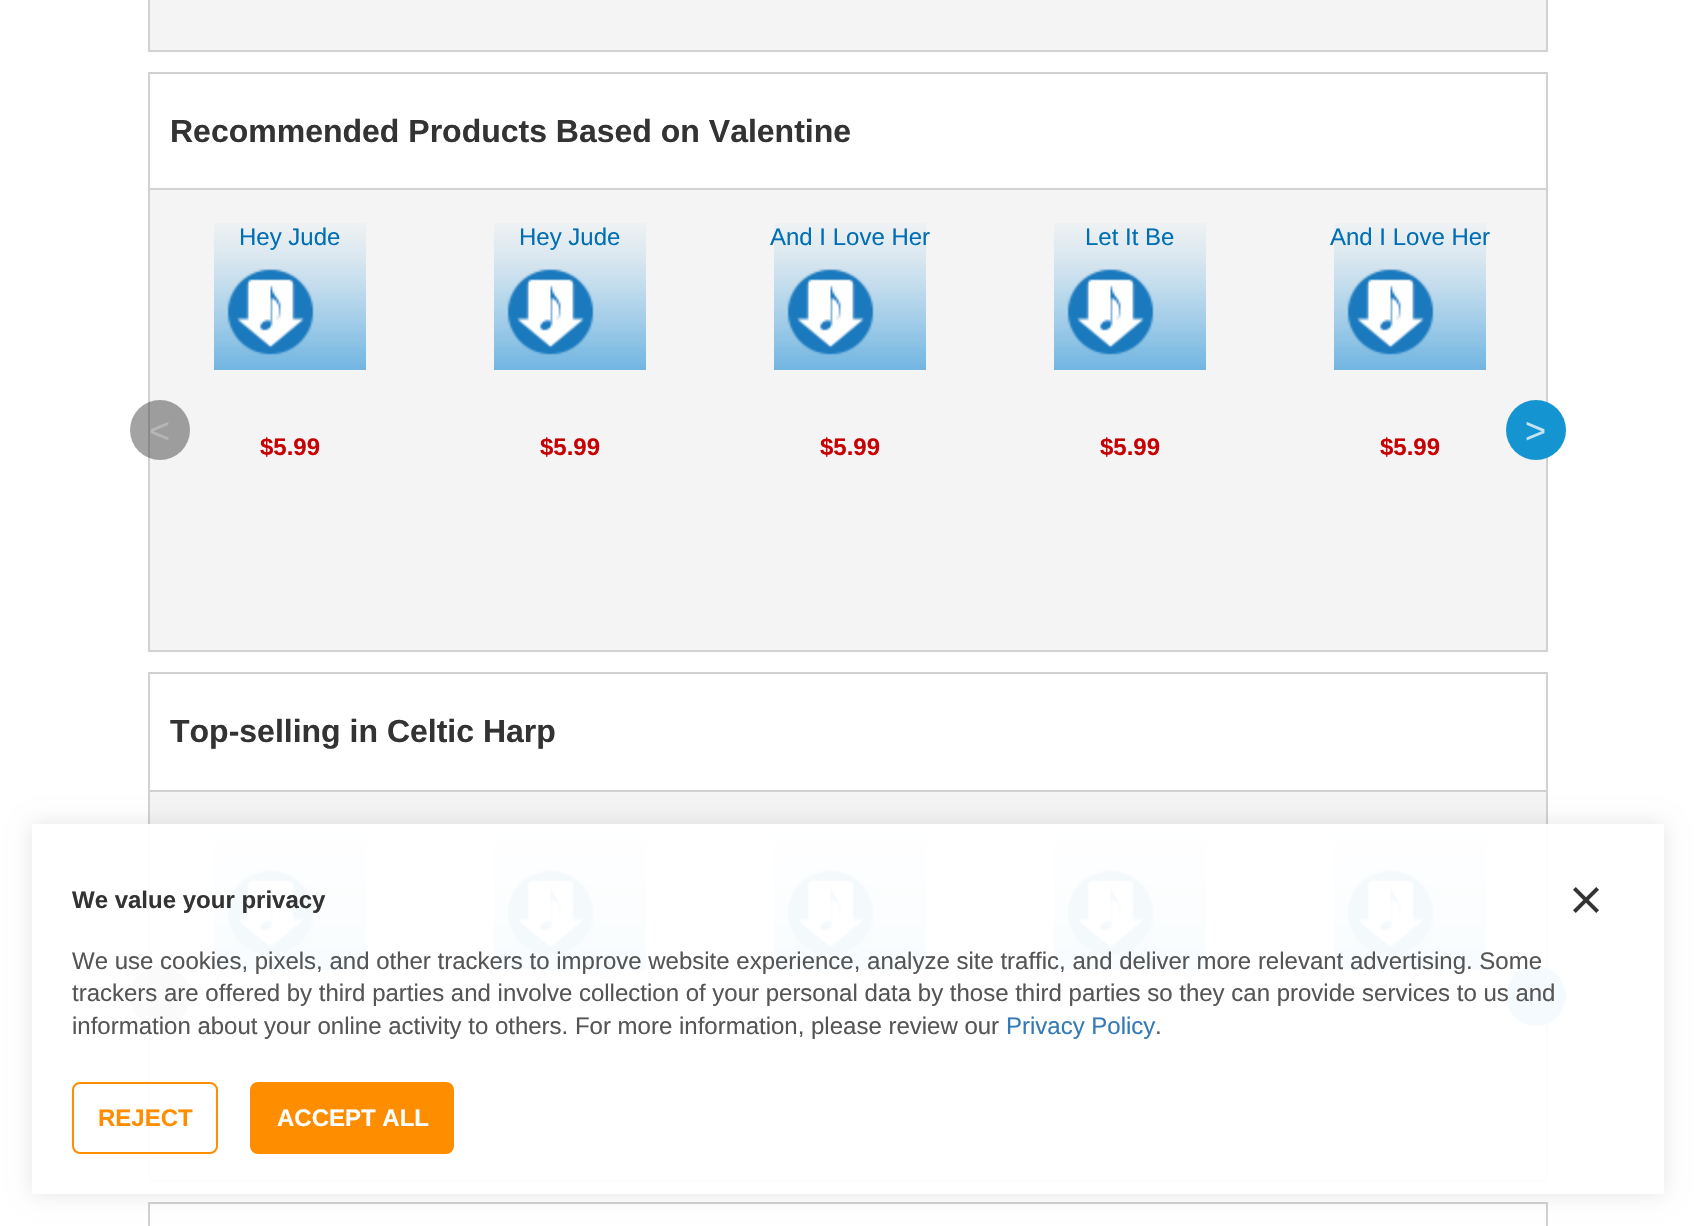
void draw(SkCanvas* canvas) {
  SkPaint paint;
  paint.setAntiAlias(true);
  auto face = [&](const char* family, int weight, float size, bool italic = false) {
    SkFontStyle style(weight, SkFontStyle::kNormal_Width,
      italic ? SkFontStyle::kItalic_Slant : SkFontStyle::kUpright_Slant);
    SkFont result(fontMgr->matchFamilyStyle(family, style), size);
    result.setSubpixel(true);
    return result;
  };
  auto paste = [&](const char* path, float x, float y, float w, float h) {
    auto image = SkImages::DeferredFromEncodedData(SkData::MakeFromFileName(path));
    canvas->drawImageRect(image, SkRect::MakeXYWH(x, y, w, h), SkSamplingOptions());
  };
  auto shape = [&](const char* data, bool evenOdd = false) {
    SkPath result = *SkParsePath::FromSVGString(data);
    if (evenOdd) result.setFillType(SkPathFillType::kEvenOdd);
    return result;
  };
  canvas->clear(0xffffffff);
  paint.setStroke(true);
  paint.setStrokeWidth(2);
  paint.setColor(0xffd1d1d1);
  canvas->drawRect(SkRect::MakeXYWH(149, -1, 1398, 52), paint);
  paint.setStroke(false);
  paint.setColor(0xfff4f4f4);
  canvas->drawRect(SkRect::MakeXYWH(150, 0, 1396, 50), paint);
  paint.setStroke(true);
  paint.setColor(0xffd1d1d1);
  canvas->drawRect(SkRect::MakeXYWH(149, 73, 1398, 578), paint);
  paint.setStroke(false);
  canvas->drawRect(SkRect::MakeXYWH(150, 188, 1396, 2), paint);
  paint.setColor(0xfff4f4f4);
  canvas->drawRect(SkRect::MakeXYWH(150, 190, 1396, 460), paint);
  paint.setColor(0x73333333);
  canvas->drawCircle(160, 430, 30, paint);
  paint.setColor(0xff1494d1);
  canvas->drawCircle(1536, 430, 30, paint);
  paint.setStroke(true);
  paint.setColor(0xffd1d1d1);
  canvas->drawRect(SkRect::MakeXYWH(149, 673, 1398, 508), paint);
  paint.setStroke(false);
  canvas->drawRect(SkRect::MakeXYWH(150, 790, 1396, 2), paint);
  paint.setColor(0xfff4f4f4);
  canvas->drawRect(SkRect::MakeXYWH(150, 792, 1396, 388), paint);
  paste("img/4.png", 214, 825, 152, 145);
  paste("img/5.png", 494, 825, 152, 145);
  paste("img/6.png", 774, 825, 152, 145);
  paste("img/7.png", 1054, 825, 152, 145);
  paste("img/8.png", 1334, 825, 152, 145);
  paint.setColor(0x73333333);
  canvas->drawCircle(160, 996, 30, paint);
  paint.setColor(0xff1494d1);
  canvas->drawCircle(1536, 996, 30, paint);
  paint.setStroke(true);
  paint.setColor(0xffd1d1d1);
  canvas->drawRect(SkRect::MakeXYWH(149, 1203, 1398, 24), paint);
  canvas->save();
  canvas->clipPath(shape("M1 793H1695V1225H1ZM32 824H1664V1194H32Z", true), true);
  paint.setStroke(false);
  paint.setColor(0x1a000000);
  paint.setMaskFilter(SkMaskFilter::MakeBlur(kNormal_SkBlurStyle, 10));
  canvas->drawRect(SkRect::MakeXYWH(32, 824, 1632, 370), paint);
  paint.setMaskFilter(nullptr);
  canvas->restore();
  paint.setColor(0xf2ffffff);
  canvas->drawRect(SkRect::MakeXYWH(130, 824, 1436, 358), paint);
  paste("img/9.png", 1573, 887, 26, 26);
  paint.setStroke(true);
  paint.setColor(0xffff8d00);
  canvas->drawRoundRect(SkRect::MakeXYWH(73, 1083, 144, 70), 7, 7, paint);
  paint.setStroke(false);
  canvas->drawRoundRect(SkRect::MakeXYWH(250, 1082, 204, 72), 8, 8, paint);
  auto f0 = face("Liberation Sans", 700, 32);
  paint.setColor(0xff333333);
  canvas->drawString("Recommended Products Based on Valentine", 170, 142, f0, paint);
  auto f1 = face("Liberation Sans", 400, 36);
  paint.setColor(0xffb6b6b6);
  canvas->drawString("<", 149, 443, f1, paint);
  auto f2 = face("Liberation Sans", 400, 24);
  paint.setColor(0xff006db1);
  canvas->drawString("Hey Jude", 239, 245, f2, paint);
  paste("img/1.png", 214, 223, 152, 147);
  auto f3 = face("Liberation Sans", 700, 24);
  paint.setColor(0xffc60202);
  canvas->drawString("$5.99", 260, 455, f3, paint);
  paint.setColor(0xff006db1);
  canvas->drawString("Hey Jude", 519, 245, f2, paint);
  paste("img/1.png", 494, 223, 152, 147);
  paint.setColor(0xffc60202);
  canvas->drawString("$5.99", 540, 455, f3, paint);
  paint.setColor(0xff006db1);
  canvas->drawString("And I Love Her", 770, 245, f2, paint);
  paste("img/2.png", 774, 223, 152, 147);
  paint.setColor(0xffc60202);
  canvas->drawString("$5.99", 820, 455, f3, paint);
  paint.setColor(0xff006db1);
  canvas->drawString("Let It Be", 1085, 245, f2, paint);
  paste("img/3.png", 1054, 223, 152, 147);
  paint.setColor(0xffc60202);
  canvas->drawString("$5.99", 1100, 455, f3, paint);
  paint.setColor(0xff006db1);
  canvas->drawString("And I Love Her", 1330, 245, f2, paint);
  paste("img/2.png", 1334, 223, 152, 147);
  paint.setColor(0xffc60202);
  canvas->drawString("$5.99", 1380, 455, f3, paint);
  paint.setColor(0xffc4e4f4);
  canvas->drawString(">", 1525, 443, f1, paint);
  paint.setColor(0xff333333);
  canvas->drawString("Top-selling in Celtic Harp", 170, 742, f0, paint);
  canvas->drawString("We value your privacy", 72, 908, f3, paint);
  paint.setColor(0xff555555);
  {
    const struct { const char* s; float x, y; } items[] = {
      {"We use cookies, pixels, and other trackers to improve website experience, analyze site traffic, and deliver more relevant advertising. Some", 72, 969},
      {"trackers are offered by third parties and involve collection of your personal data by those third parties so they can provide services to us and", 72, 1001},
      {"information about your online activity to others. For more information, please review our", 72, 1034},
    };
    for (auto [s, x, y] : items) {
      canvas->drawString(s, x, y, f2, paint);
    }
  }
  paint.setColor(0xff337ab7);
  canvas->drawString("Privacy Policy", 1006, 1034, f2, paint);
  paint.setColor(0xff555555);
  canvas->drawString(".", 1155, 1034, f2, paint);
  paint.setColor(0xffff8d00);
  canvas->drawString("REJECT", 98, 1126, f3, paint);
  paint.setColor(0xffffffff);
  canvas->drawString("ACCEPT ALL", 277, 1126, f3, paint);
}
